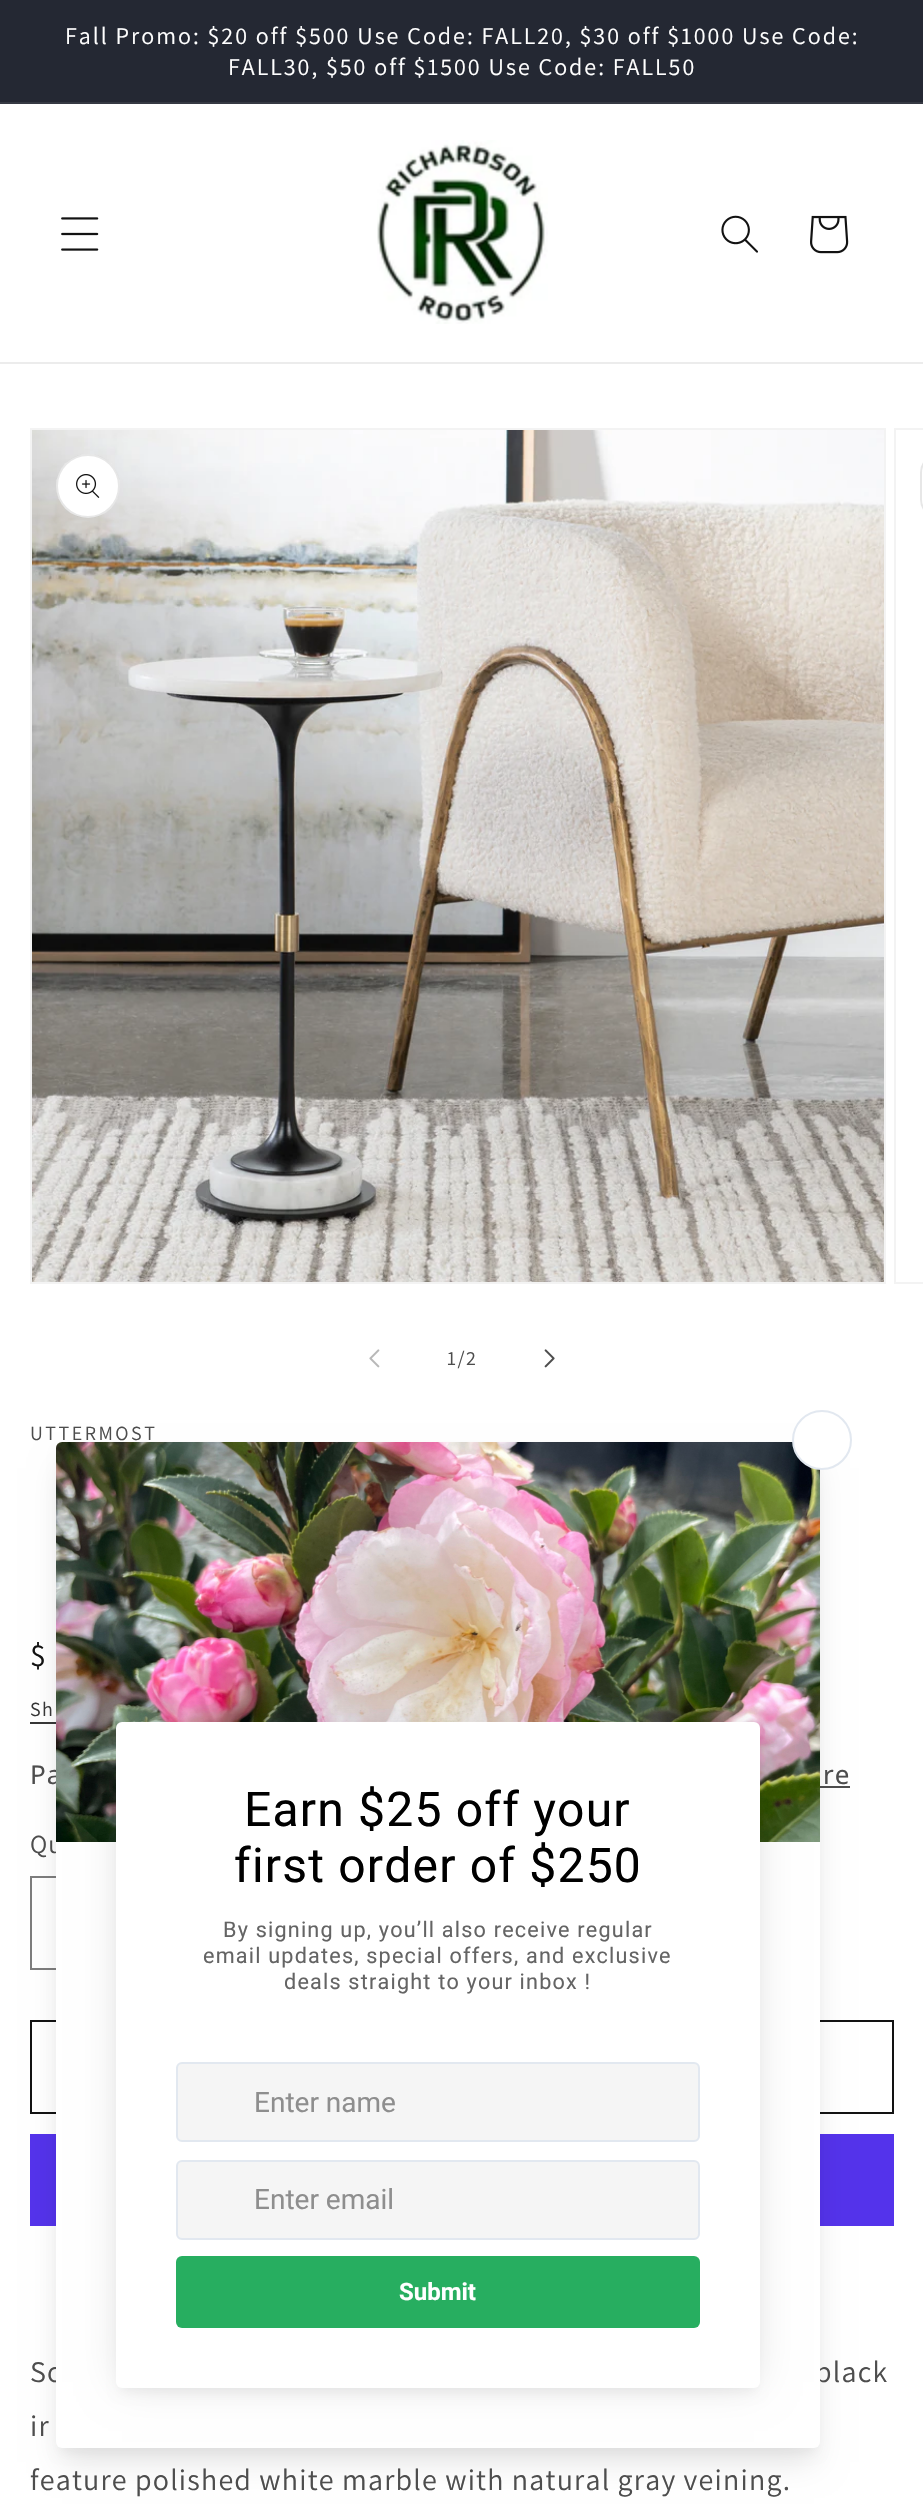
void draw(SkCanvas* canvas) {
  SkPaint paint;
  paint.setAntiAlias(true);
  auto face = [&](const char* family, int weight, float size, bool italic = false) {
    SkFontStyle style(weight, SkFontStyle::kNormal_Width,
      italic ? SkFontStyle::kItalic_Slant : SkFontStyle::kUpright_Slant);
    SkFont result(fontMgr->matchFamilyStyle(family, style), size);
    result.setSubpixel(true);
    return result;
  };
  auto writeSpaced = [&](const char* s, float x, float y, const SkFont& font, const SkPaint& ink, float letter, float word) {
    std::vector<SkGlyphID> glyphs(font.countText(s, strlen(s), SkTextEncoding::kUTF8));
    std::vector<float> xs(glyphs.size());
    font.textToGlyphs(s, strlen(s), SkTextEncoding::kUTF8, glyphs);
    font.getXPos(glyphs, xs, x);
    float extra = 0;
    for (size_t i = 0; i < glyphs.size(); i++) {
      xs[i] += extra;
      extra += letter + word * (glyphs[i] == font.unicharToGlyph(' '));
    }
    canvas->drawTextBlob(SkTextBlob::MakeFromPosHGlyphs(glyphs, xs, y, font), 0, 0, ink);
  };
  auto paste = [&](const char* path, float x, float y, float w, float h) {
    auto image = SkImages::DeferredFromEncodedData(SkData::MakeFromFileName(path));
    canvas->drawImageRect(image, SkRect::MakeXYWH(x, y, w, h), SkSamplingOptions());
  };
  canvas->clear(0xffffffff);
  {
    const struct { float x, y, w, h; SkColor color; } items[] = {
      {0, 0, 923, 102, 0xff242833},
      {0, 102, 923, 2, 0xff363943},
      {0, 362, 923, 2, 0xffececec},
    };
    for (auto [x, y, w, h, color] : items) {
      paint.setColor(color);
      canvas->drawRect(SkRect::MakeXYWH(x, y, w, h), paint);
    }
  }
  paste("img/1.png", 61, 217, 38, 34);
  paste("img/2.png", 377, 140, 171, 184);
  paste("img/3.png", 721, 215, 37, 38);
  paste("img/4.png", 810, 215, 39, 39);
  paint.setStroke(true);
  paint.setStrokeWidth(2);
  paint.setColor(0xfff3f3f3);
  canvas->drawRect(SkRect::MakeXYWH(31, 429, 854, 854), paint);
  paste("img/5.png", 32, 430, 852, 852);
  paint.setStroke(false);
  paint.setColor(0xffffffff);
  canvas->drawCircle(88, 486, 32, paint);
  paint.setStroke(true);
  paint.setColor(0x1a121212);
  canvas->drawCircle(88, 486, 31, paint);
  paste("img/6.png", 76, 474, 24, 24);
  paint.setColor(0xfff3f3f3);
  canvas->drawRect(SkRect::MakeXYWH(895, 429, 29, 854), paint);
  paint.setColor(0xffe7e7e7);
  canvas->drawRoundRect(SkRect::MakeXYWH(921, 455, 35, 62), 31, 31, paint);
  paste("img/7.png", 369, 1349, 11, 19);
  paste("img/8.png", 544, 1349, 11, 19);
  paint.setStroke(false);
  paint.setColor(0xff363636);
  canvas->drawRect(SkRect::MakeXYWH(30, 1722, 26, 2), paint);
  paint.setColor(0xff4d4d4d);
  canvas->drawRect(SkRect::MakeXYWH(820, 1786, 30, 2), paint);
  paint.setStroke(true);
  paint.setColor(0xff7d7d7d);
  canvas->drawRect(SkRect::MakeXYWH(31, 1877, 282, 92), paint);
  paint.setColor(0xff121212);
  canvas->drawRect(SkRect::MakeXYWH(31, 2021, 862, 92), paint);
  paint.setStroke(false);
  paint.setColor(0xff5433eb);
  canvas->drawRect(SkRect::MakeXYWH(30, 2134, 864, 92), paint);
  paint.setColor(0x0d000000);
  paint.setMaskFilter(SkMaskFilter::MakeBlur(kNormal_SkBlurStyle, 6));
  canvas->drawRoundRect(SkRect::MakeXYWH(60, 1454, 756, 998), 2, 2, paint);
  paint.setMaskFilter(nullptr);
  paint.setColor(0x1a000000);
  paint.setMaskFilter(SkMaskFilter::MakeBlur(kNormal_SkBlurStyle, 15));
  canvas->drawRect(SkRect::MakeXYWH(62, 1468, 752, 994), paint);
  paint.setMaskFilter(nullptr);
  auto f0 = face("Assistant", 400, 24);
  paint.setColor(0xffffffff);
  writeSpaced("Fall Promo: $20 off $500 Use Code: FALL20, $30 off $1000 Use Code:", 65, 44, f0, paint, 2, 0);
  writeSpaced("FALL30, $50 off $1500 Use Code: FALL50", 228, 75, f0, paint, 2, 0);
  auto f1 = face("Assistant", 400, 20);
  paint.setColor(0xff4d4d4d);
  writeSpaced("1/2", 447, 1365, f1, paint, 1.5f, 0);
  writeSpaced("UTTERMOST", 30, 1440, f1, paint, 2.5f, 0);
  auto f2 = face("Assistant", 400, 32);
  paint.setColor(0xff121212);
  writeSpaced("$", 30, 1666, f2, paint, 2.5f, 0);
  paint.setColor(0xff363636);
  writeSpaced("Sh", 30, 1716, f1, paint, 1.5f, 0);
  auto f3 = face("Noto Sans", 400, 26);
  paint.setColor(0xff4d4d4d);
  writeSpaced("Pa", 30, 1784, f3, paint, 1, 0);
  writeSpaced("re", 823, 1784, f3, paint, 1, 0);
  auto f4 = face("Assistant", 400, 26);
  writeSpaced("Qu", 30, 1853, f4, paint, 1, 0);
  auto f5 = face("Assistant", 400, 30);
  {
    const struct { const char* s; float x, y; } items[] = {
      {"So", 30, 2382},
      {"black", 815, 2382},
      {"ir", 30, 2436},
      {"feature polished white marble with natural gray veining.", 30, 2490},
    };
    for (auto [s, x, y] : items) {
      writeSpaced(s, x, y, f5, paint, 1.2f, 0);
    }
  }
  paint.setColor(0xffffffff);
  canvas->drawRoundRect(SkRect::MakeXYWH(56, 1442, 764, 1006), 6, 6, paint);
  paste("img/9.png", 56, 1442, 764, 400);
  canvas->drawCircle(822, 1440, 29, paint);
  paint.setStroke(true);
  paint.setColor(0xffe2e8f0);
  canvas->drawCircle(822, 1440, 29, paint);
  paint.setStroke(false);
  paint.setColor(0x0d000000);
  paint.setMaskFilter(SkMaskFilter::MakeBlur(kNormal_SkBlurStyle, 6));
  canvas->drawRoundRect(SkRect::MakeXYWH(120, 1734, 636, 658), 2, 2, paint);
  paint.setMaskFilter(nullptr);
  paint.setColor(0x1f000000);
  paint.setMaskFilter(SkMaskFilter::MakeBlur(kNormal_SkBlurStyle, 20));
  canvas->drawRect(SkRect::MakeXYWH(122, 1728, 632, 654), paint);
  paint.setMaskFilter(nullptr);
  paint.setColor(0xffffffff);
  canvas->drawRoundRect(SkRect::MakeXYWH(116, 1722, 644, 666), 6, 6, paint);
  auto f6 = face("Roboto", 400, 48);
  paint.setColor(0xff000000);
  writeSpaced("Earn $25 off your", 244, 1826, f6, paint, 1.2f, 0);
  writeSpaced("first order of $250", 234, 1882, f6, paint, 1.2f, 0);
  auto f7 = face("Roboto", 400, 21.6f);
  paint.setColor(0xff646464);
  {
    const struct { const char* s; float x, y; } items[] = {
      {"By signing up, you’ll also receive regular", 223, 1937},
      {"email updates, special offers, and exclusive", 203, 1963},
      {"deals straight to your inbox !", 284, 1989},
    };
    for (auto [s, x, y] : items) {
      writeSpaced(s, x, y, f7, paint, 1.2f, 0);
    }
  }
  paint.setColor(0xfff5f5f5);
  canvas->drawRoundRect(SkRect::MakeXYWH(177, 2063, 522, 78), 5, 5, paint);
  paint.setStroke(true);
  paint.setColor(0xffe2e8f0);
  canvas->drawRoundRect(SkRect::MakeXYWH(177, 2063, 522, 78), 5, 5, paint);
  auto f8 = face("Roboto", 400, 28);
  paint.setStroke(false);
  paint.setColor(0xff8e8e8e);
  canvas->drawString("Enter name", 254, 2112, f8, paint);
  paint.setColor(0xfff5f5f5);
  canvas->drawRoundRect(SkRect::MakeXYWH(177, 2161, 522, 78), 5, 5, paint);
  paint.setStroke(true);
  paint.setColor(0xffe2e8f0);
  canvas->drawRoundRect(SkRect::MakeXYWH(177, 2161, 522, 78), 5, 5, paint);
  paint.setStroke(false);
  paint.setColor(0xff8e8e8e);
  canvas->drawString("Enter email", 254, 2209, f8, paint);
  paint.setColor(0xff27ae60);
  canvas->drawRoundRect(SkRect::MakeXYWH(176, 2256, 524, 72), 6, 6, paint);
  auto f9 = face("Roboto", 700, 24);
  paint.setColor(0xffffffff);
  canvas->drawString("Submit", 399, 2300, f9, paint);
}
